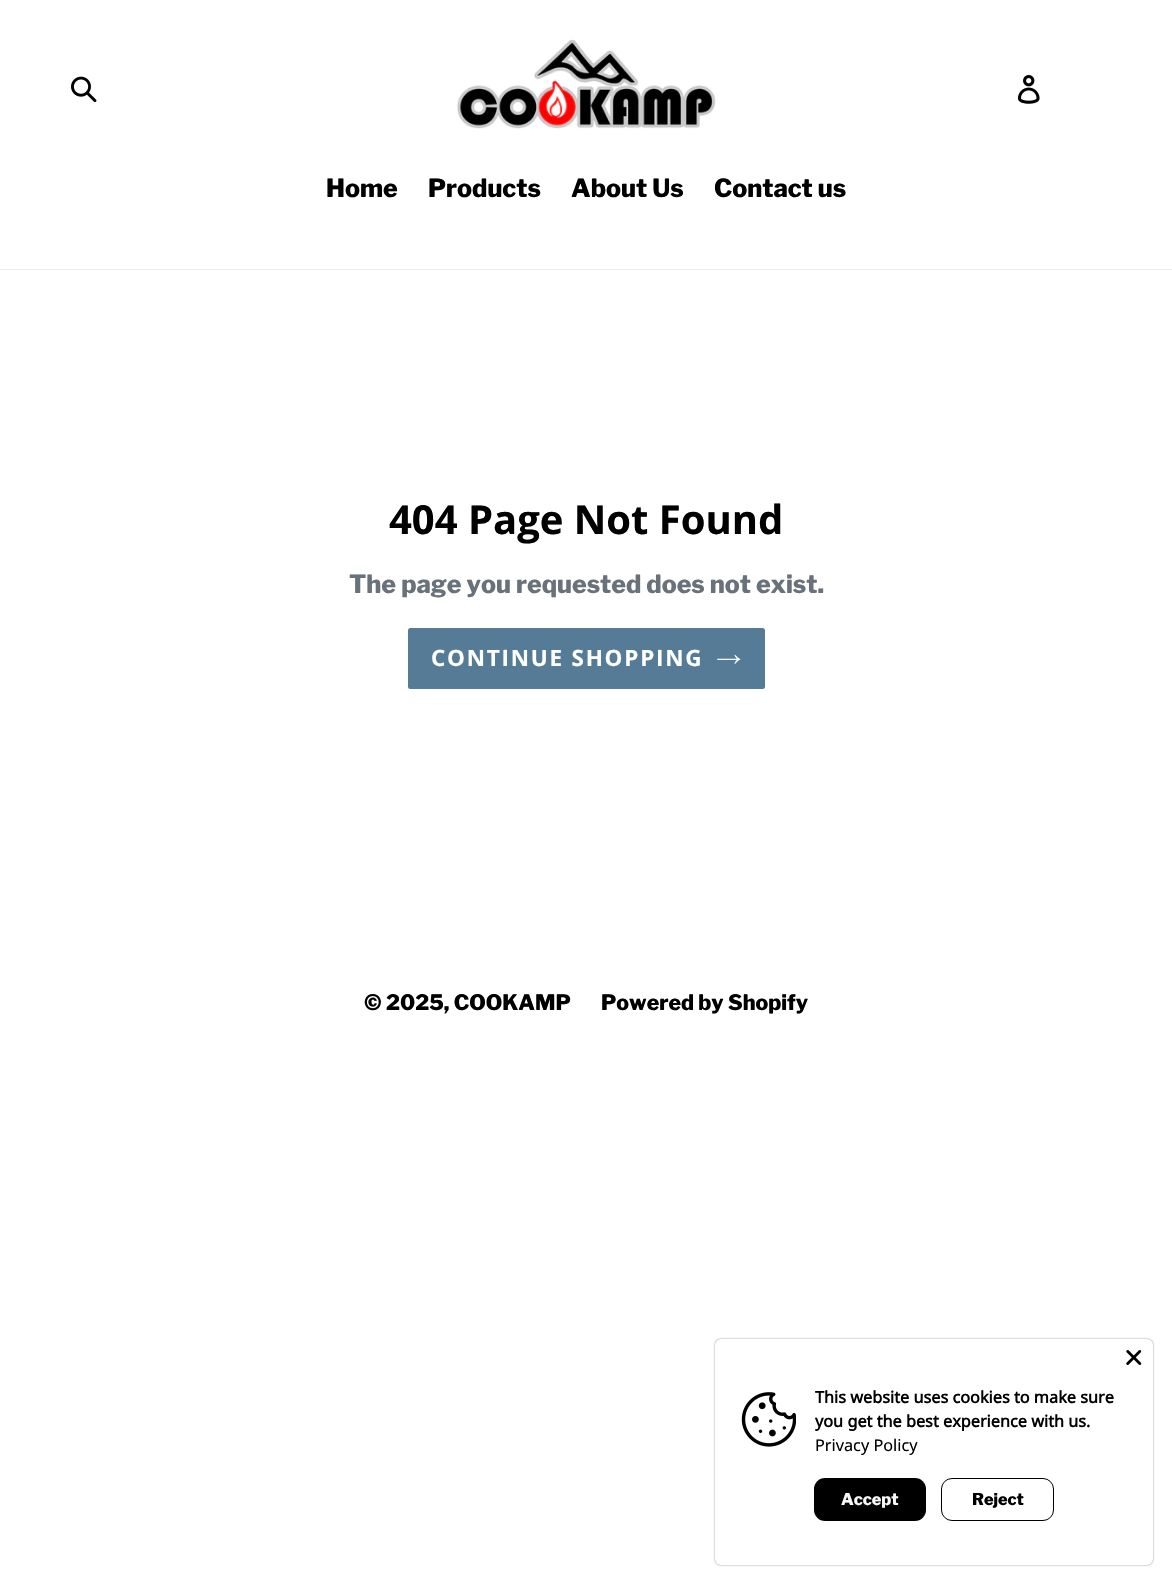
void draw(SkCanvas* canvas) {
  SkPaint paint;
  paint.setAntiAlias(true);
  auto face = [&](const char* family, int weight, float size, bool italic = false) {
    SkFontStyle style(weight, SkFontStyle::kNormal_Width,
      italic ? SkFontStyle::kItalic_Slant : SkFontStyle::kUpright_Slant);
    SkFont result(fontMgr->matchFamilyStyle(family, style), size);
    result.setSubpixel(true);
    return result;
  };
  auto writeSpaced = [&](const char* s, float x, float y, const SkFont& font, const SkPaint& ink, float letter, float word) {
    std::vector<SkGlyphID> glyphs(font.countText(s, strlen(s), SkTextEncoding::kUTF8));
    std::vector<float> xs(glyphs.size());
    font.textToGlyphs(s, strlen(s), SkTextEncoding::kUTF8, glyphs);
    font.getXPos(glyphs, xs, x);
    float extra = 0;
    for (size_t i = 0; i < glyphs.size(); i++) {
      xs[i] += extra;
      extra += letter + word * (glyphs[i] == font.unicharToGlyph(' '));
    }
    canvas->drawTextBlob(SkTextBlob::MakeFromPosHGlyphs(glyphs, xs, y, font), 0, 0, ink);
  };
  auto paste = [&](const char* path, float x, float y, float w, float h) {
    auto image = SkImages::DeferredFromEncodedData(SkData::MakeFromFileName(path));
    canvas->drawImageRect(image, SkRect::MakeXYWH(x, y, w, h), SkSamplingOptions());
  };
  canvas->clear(0xffffffff);
  paste("img/1.png", 71, 76, 26, 27);
  paste("img/2.png", 457, 39, 259, 90);
  paste("img/3.png", 1017, 75, 23, 29);
  paint.setColor(0xffe8e9eb);
  canvas->drawRect(SkRect::MakeXYWH(0, 269, 1172, 1), paint);
  paint.setColor(0xff557b97);
  canvas->drawRoundRect(SkRect::MakeXYWH(408, 628, 357, 61), 2.5f, 2.5f, paint);
  paste("img/4.png", 717, 654, 24, 10);
  paint.setColor(0x80000000);
  paint.setMaskFilter(SkMaskFilter::MakeBlur(kNormal_SkBlurStyle, 1));
  canvas->drawRoundRect(SkRect::MakeXYWH(715, 1339, 438, 226), 6, 6, paint);
  paint.setMaskFilter(nullptr);
  paint.setColor(0xffffffff);
  canvas->drawRoundRect(SkRect::MakeXYWH(715, 1339, 438, 226), 6, 6, paint);
  paste("img/5.png", 1126, 1350, 16, 15);
  paste("img/6.png", 741, 1392, 55, 55);
  paint.setColor(0xff000000);
  canvas->drawRoundRect(SkRect::MakeXYWH(814, 1478, 112, 43), 11, 11, paint);
  paint.setStroke(true);
  paint.setStrokeWidth(1);
  canvas->drawRoundRect(SkRect::MakeXYWH(941.5f, 1478.5f, 112, 42), 10.5f, 10.5f, paint);
  auto f0 = face("Libre Franklin", 800, 25);
  paint.setStroke(false);
  {
    const struct { const char* s; float x, y; } items[] = {
      {"Home", 326, 197},
      {"Products", 428, 197},
      {"About Us", 571, 197},
      {"Contact us", 714, 197},
    };
    for (auto [s, x, y] : items) {
      canvas->drawString(s, x, y, f0, paint);
    }
  }
  auto f1 = face("Open Sans", 700, 40);
  canvas->drawString("404 Page Not Found", 389, 534, f1, paint);
  paint.setColor(0xff69727b);
  canvas->drawString("The page you requested does not exist.", 349, 593, f0, paint);
  auto f2 = face("Open Sans", 700, 22.5f);
  paint.setColor(0xffffffff);
  writeSpaced("CONTINUE SHOPPING", 431, 666, f2, paint, 1.75f, 0);
  auto f3 = face("Libre Franklin", 800, 21.25f);
  paint.setColor(0xff000000);
  canvas->drawString("© 2025, COOKAMP", 364, 1010, f3, paint);
  canvas->drawString("Powered by Shopify", 601, 1010, f3, paint);
  auto f4 = face("Noto Sans", 700, 16.25f);
  canvas->drawString("This website uses cookies to make sure", 815, 1403, f4, paint);
  canvas->drawString("you get the best experience with us.", 815, 1427, f4, paint);
  auto f5 = face("Noto Sans", 400, 16.25f);
  canvas->drawString("Privacy Policy", 815, 1451, f5, paint);
  auto f6 = face("Libre Franklin", 800, 16.25f);
  paint.setColor(0xfff8f8f8);
  canvas->drawString("Accept", 841, 1505, f6, paint);
  paint.setColor(0xff000000);
  canvas->drawString("Reject", 972, 1505, f6, paint);
}
